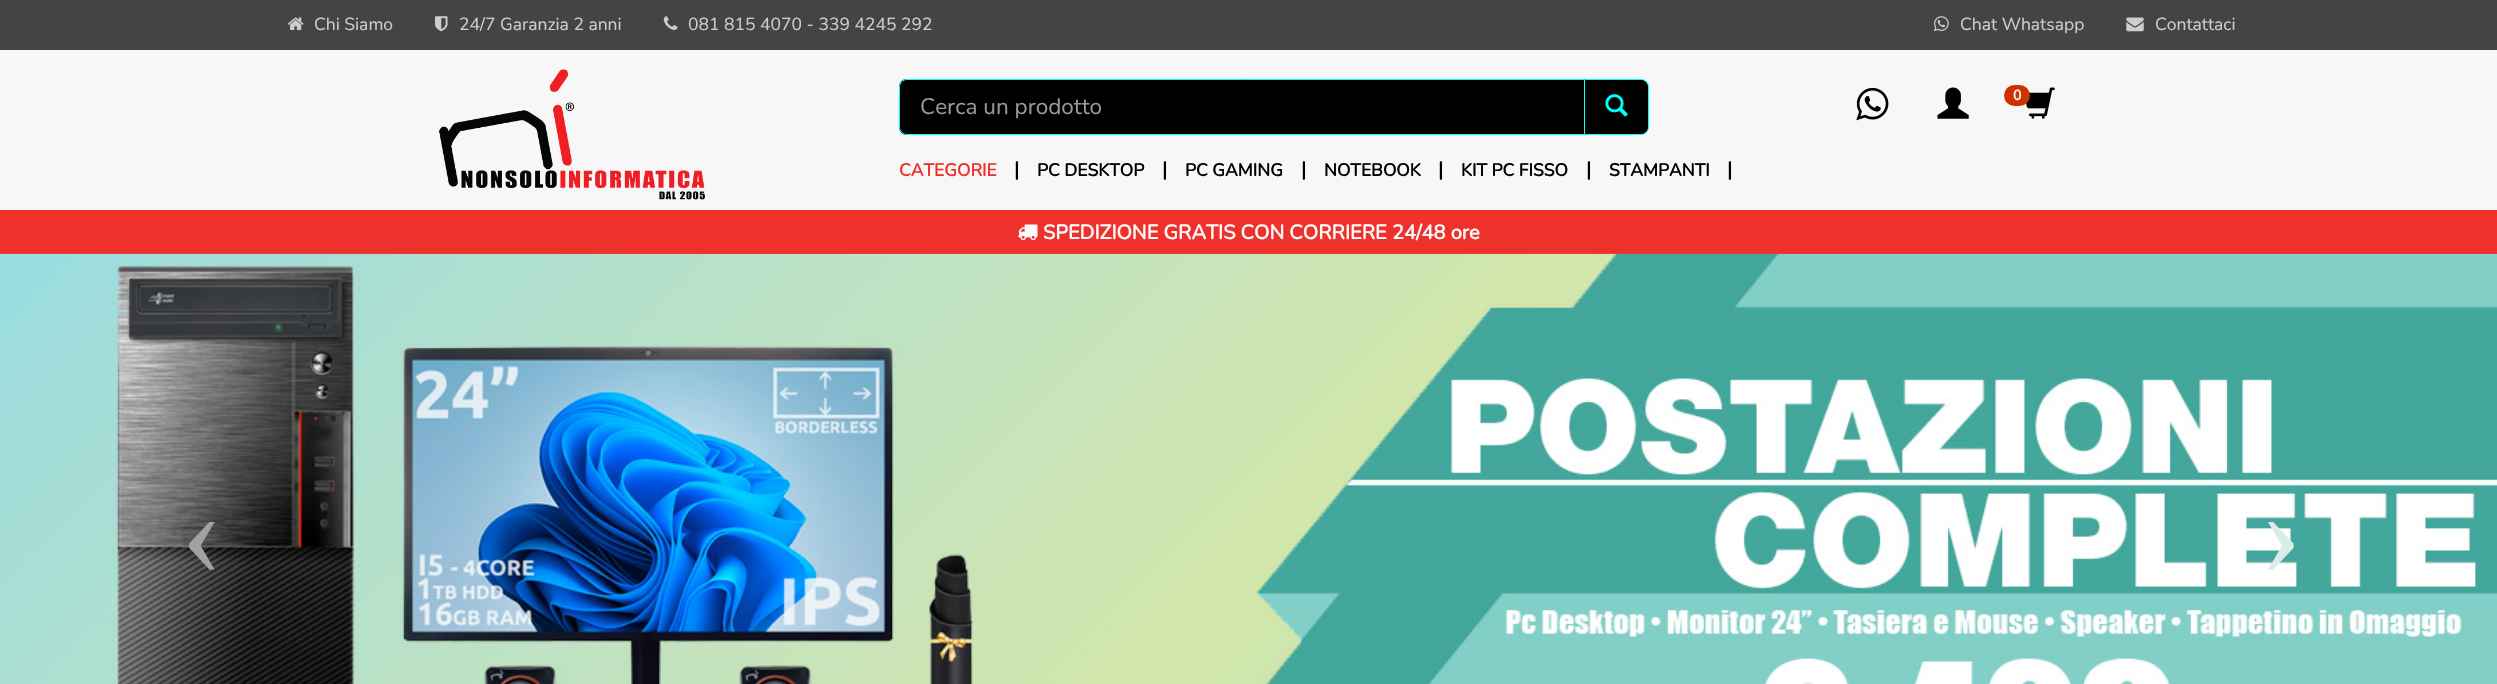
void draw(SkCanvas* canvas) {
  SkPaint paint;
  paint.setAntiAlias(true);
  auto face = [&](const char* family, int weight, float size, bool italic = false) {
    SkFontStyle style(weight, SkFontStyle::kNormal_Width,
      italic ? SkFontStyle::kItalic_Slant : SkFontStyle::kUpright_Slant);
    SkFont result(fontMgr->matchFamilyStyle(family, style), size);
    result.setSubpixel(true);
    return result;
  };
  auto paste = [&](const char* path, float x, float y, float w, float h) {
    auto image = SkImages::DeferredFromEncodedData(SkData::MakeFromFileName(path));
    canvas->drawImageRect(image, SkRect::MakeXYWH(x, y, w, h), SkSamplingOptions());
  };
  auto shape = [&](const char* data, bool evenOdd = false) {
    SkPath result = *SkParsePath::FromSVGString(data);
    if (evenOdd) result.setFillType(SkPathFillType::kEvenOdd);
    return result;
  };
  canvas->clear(0xfff7f7f7);
  paint.setColor(0xff444444);
  canvas->drawRect(SkRect::MakeXYWH(0, 0, 2497, 50), paint);
  paste("img/1.png", 287, 17, 17, 13);
  paste("img/2.png", 435, 16, 13, 16);
  paste("img/3.png", 663, 16, 15, 14);
  paste("img/4.png", 1933, 16, 16, 16);
  paste("img/5.png", 2126, 17, 18, 15);
  paste("img/6.png", 439, 69, 266, 131);
  paste("img/7.png", 1856, 87, 33, 34);
  paste("img/8.png", 1937, 87, 32, 32);
  paste("img/9.png", 2026, 87, 29, 32);
  paint.setColor(0xffcc3300);
  canvas->drawRoundRect(SkRect::MakeXYWH(2004, 85, 26, 21), 10.5f, 10.5f, paint);
  paint.setColor(0xff000000);
  canvas->drawPath(shape("M1584.5 79.5H1641C1645 79.5 1648.5 83 1648.5 87V127C1648.5 131 1645 134.5 1641 134.5H1584.5Z"), paint);
  paint.setStroke(true);
  paint.setStrokeWidth(1);
  paint.setColor(0xff00ffff);
  canvas->drawPath(shape("M1584.5 79.5H1641C1645 79.5 1648.5 83 1648.5 87V127C1648.5 131 1645 134.5 1641 134.5H1584.5Z"), paint);
  paint.setStroke(false);
  paint.setColor(0xff000000);
  canvas->drawPath(shape("M907 79H1585V135H907C902.5 135 899 131.5 899 127V87C899 82.5 902.5 79 907 79Z"), paint);
  canvas->drawPath(shape("M906 81H1584V80H906C901 80 900 84 900 88C900 84 903 81 906 81Z"), paint);
  paint.setStroke(true);
  paint.setColor(0xff00ffff);
  canvas->drawPath(shape("M907 79.5H1584.5V134.5H907C903 134.5 899.5 131 899.5 127V87C899.5 83 903 79.5 907 79.5Z"), paint);
  paste("img/10.png", 1605, 94, 23, 23);
  paint.setStroke(false);
  paint.setColor(0xffee322b);
  canvas->drawRect(SkRect::MakeXYWH(0, 210, 2497, 44), paint);
  paste("img/11.png", 1018, 224, 20, 17);
  paste("img/12.png", 0, 253, 2497, 431);
  auto f0 = face("Nunito", 200, 17.5f);
  paint.setColor(0xffcdcdcd);
  {
    const struct { const char* s; float x, y; } items[] = {
      {"Chi Siamo", 314, 30},
      {"24/7 Garanzia 2 anni", 459, 30},
      {"081 815 4070 - 339 4245 292", 688, 30},
      {"Chat Whatsapp", 1960, 30},
      {"Contattaci", 2155, 30},
    };
    for (auto [s, x, y] : items) {
      canvas->drawString(s, x, y, f0, paint);
    }
  }
  auto f1 = face("Nunito", 700, 14);
  paint.setColor(0xfffafafa);
  canvas->drawString("0", 2013, 100, f1, paint);
  auto f2 = face("Nunito", 200, 22.5f);
  paint.setColor(0xff999999);
  canvas->drawString("Cerca un prodotto", 920, 114, f2, paint);
  auto f3 = face("Nunito", 700, 17.5f);
  paint.setColor(0xffee322b);
  canvas->drawString("CATEGORIE", 899, 176, f3, paint);
  auto f4 = face("Nunito", 700, 20);
  paint.setColor(0xff000000);
  canvas->drawString("|", 1014, 176, f4, paint);
  canvas->drawString("PC DESKTOP", 1037, 176, f3, paint);
  canvas->drawString("|", 1162, 176, f4, paint);
  canvas->drawString("PC GAMING", 1185, 176, f3, paint);
  canvas->drawString("|", 1301, 176, f4, paint);
  canvas->drawString("NOTEBOOK", 1324, 176, f3, paint);
  canvas->drawString("|", 1438, 176, f4, paint);
  canvas->drawString("KIT PC FISSO", 1461, 176, f3, paint);
  canvas->drawString("|", 1586, 176, f4, paint);
  canvas->drawString("STAMPANTI", 1609, 176, f3, paint);
  canvas->drawString("|", 1727, 176, f4, paint);
  paint.setColor(0xfffafafa);
  canvas->drawString("SPEDIZIONE GRATIS CON CORRIERE 24/48 ore", 1043, 239, f4, paint);
  auto f5 = face("Liberation Serif", 400, 125);
  paint.setColor(0xffa2a2a2);
  canvas->drawString("‹", 181, 574, f5, paint);
  paint.setColor(0xffd8ecea);
  canvas->drawString("›", 2260, 574, f5, paint);
}
